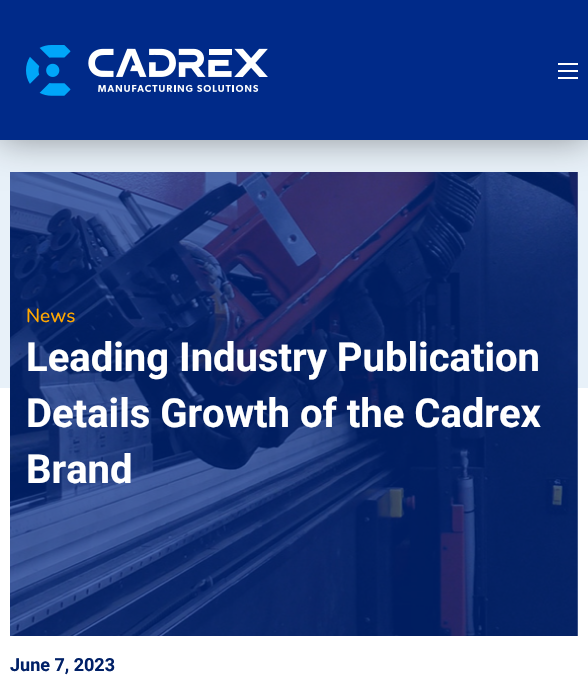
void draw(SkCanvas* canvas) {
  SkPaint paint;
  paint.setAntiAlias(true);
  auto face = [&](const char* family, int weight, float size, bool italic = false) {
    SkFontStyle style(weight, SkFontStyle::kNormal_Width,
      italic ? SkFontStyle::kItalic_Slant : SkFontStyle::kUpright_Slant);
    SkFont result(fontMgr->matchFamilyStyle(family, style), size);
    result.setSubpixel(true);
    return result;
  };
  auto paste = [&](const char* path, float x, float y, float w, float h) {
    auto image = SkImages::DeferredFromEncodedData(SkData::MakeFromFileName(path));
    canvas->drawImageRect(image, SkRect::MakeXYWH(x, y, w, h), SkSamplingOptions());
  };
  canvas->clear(0xffffffff);
  paint.setColor(0xffe8f1f9);
  canvas->drawRect(SkRect::MakeXYWH(0, 140, 588, 248), paint);
  paste("img/2.png", 10, 172, 568, 464);
  paint.setColor(0x69000000);
  paint.setMaskFilter(SkMaskFilter::MakeBlur(kNormal_SkBlurStyle, 17.5f));
  canvas->drawRect(SkRect::MakeXYWH(-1, -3, 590, 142), paint);
  paint.setMaskFilter(nullptr);
  paint.setColor(0xff002a89);
  canvas->drawRect(SkRect::MakeXYWH(0, 0, 588, 140), paint);
  paste("img/1.png", 26, 45, 242, 51);
  {
    const struct { float x, y, w, h; SkColor color; } items[] = {
      {558, 77, 20, 2, 0xffffffff},
      {558, 70, 20, 2, 0xffffffff},
      {558, 63, 20, 2, 0xffffffff},
    };
    for (auto [x, y, w, h, color] : items) {
      paint.setColor(color);
      canvas->drawRect(SkRect::MakeXYWH(x, y, w, h), paint);
    }
  }
  auto f0 = face("Nunito", 500, 19);
  paint.setColor(0xffffa700);
  canvas->drawString("News", 26, 322, f0, paint);
  auto f1 = face("Roboto", 700, 40);
  paint.setColor(0xffffffff);
  {
    const struct { const char* s; float x, y; } items[] = {
      {"Leading Industry Publication", 26, 371},
      {"Details Growth of the Cadrex", 26, 427},
      {"Brand", 26, 483},
    };
    for (auto [s, x, y] : items) {
      canvas->drawString(s, x, y, f1, paint);
    }
  }
  auto f2 = face("Roboto", 700, 18);
  paint.setColor(0xff002067);
  canvas->drawString("June 7, 2023", 10, 671, f2, paint);
}
